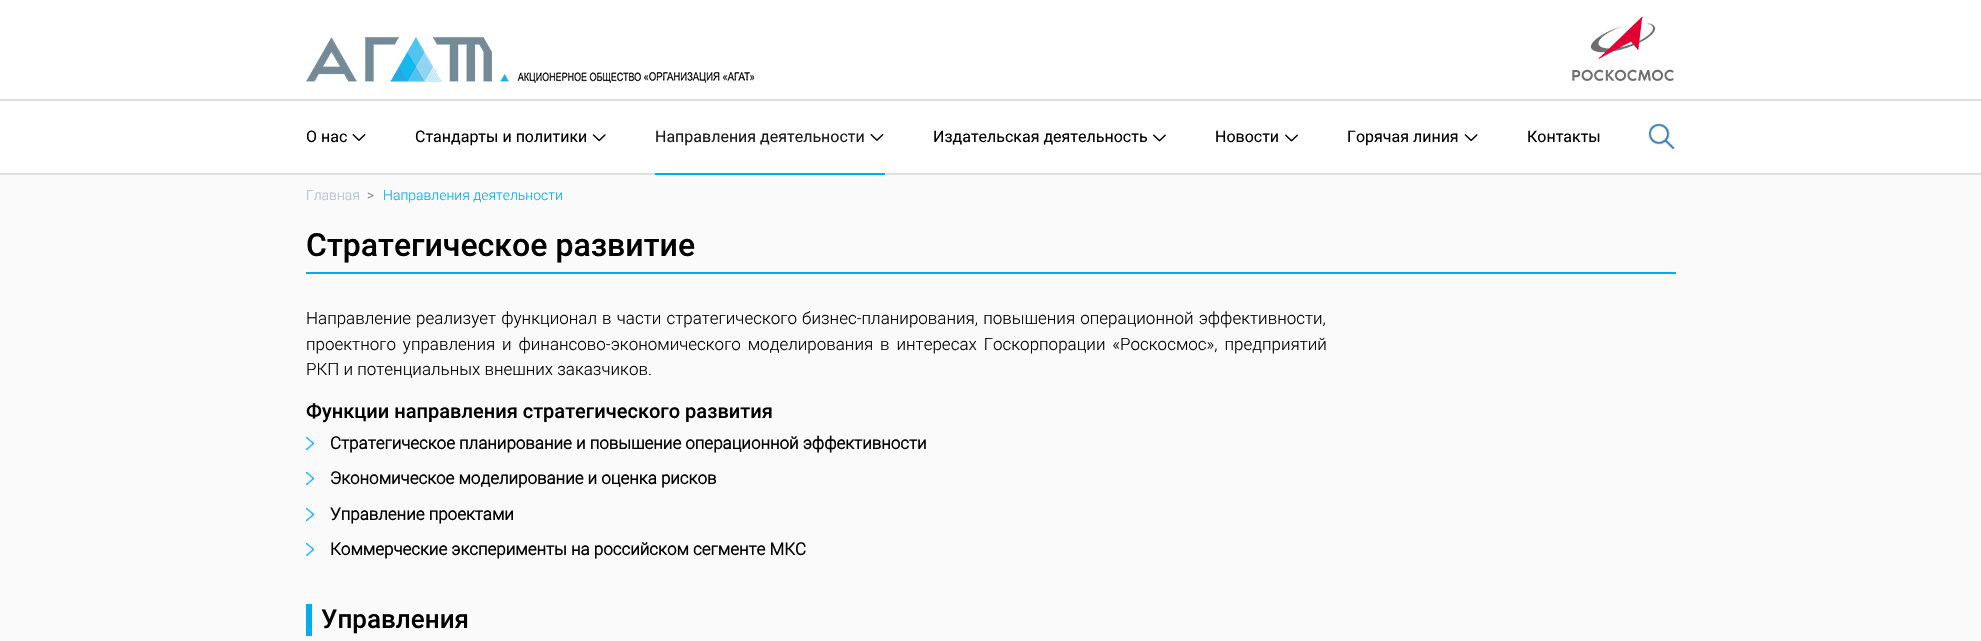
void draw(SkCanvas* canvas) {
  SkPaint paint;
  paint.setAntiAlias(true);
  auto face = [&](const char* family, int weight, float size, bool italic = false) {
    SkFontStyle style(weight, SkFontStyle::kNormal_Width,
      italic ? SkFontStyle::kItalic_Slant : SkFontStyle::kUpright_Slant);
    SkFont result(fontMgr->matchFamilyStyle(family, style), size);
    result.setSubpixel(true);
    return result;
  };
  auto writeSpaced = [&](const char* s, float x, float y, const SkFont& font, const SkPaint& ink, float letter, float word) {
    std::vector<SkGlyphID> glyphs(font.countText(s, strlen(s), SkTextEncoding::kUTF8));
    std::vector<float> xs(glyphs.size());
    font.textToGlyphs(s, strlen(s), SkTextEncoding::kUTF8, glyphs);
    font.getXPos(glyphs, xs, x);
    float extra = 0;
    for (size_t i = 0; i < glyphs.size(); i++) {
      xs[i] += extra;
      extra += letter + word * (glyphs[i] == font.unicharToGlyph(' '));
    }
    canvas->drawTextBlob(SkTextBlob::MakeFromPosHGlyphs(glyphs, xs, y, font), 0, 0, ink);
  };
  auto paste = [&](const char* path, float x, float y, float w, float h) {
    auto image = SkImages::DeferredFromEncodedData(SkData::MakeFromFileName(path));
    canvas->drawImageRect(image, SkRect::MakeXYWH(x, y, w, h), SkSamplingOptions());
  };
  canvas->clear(0xfffafafa);
  paint.setColor(0xffffffff);
  canvas->drawRect(SkRect::MakeXYWH(0, 0, 1981, 173), paint);
  paste("img/1.png", 306, 37, 448, 46);
  paste("img/2.png", 1572, 16, 102, 65);
  paint.setColor(0xffdfdfdf);
  canvas->drawRect(SkRect::MakeXYWH(0, 99, 1981, 2), paint);
  canvas->drawRect(SkRect::MakeXYWH(0, 173, 1981, 2), paint);
  paste("img/3.png", 352, 134, 14, 7);
  paste("img/4.png", 592, 134, 14, 8);
  paint.setColor(0xff00aeef);
  canvas->drawRect(SkRect::MakeXYWH(655, 173, 230, 2), paint);
  paste("img/5.png", 870, 134, 14, 7);
  paste("img/6.png", 1153, 134, 13, 8);
  paste("img/7.png", 1285, 134, 13, 8);
  paste("img/8.png", 1464, 134, 14, 8);
  paste("img/9.png", 1648, 123, 27, 27);
  canvas->drawRect(SkRect::MakeXYWH(306, 272, 1370, 2), paint);
  paste("img/10.png", 306, 437, 8, 13);
  paste("img/10.png", 306, 472, 8, 13);
  paste("img/10.png", 306, 508, 8, 13);
  paste("img/10.png", 306, 543, 8, 13);
  canvas->drawRect(SkRect::MakeXYWH(306, 604, 6, 32), paint);
  auto f0 = face("Roboto", 400, 16);
  paint.setColor(0xff000000);
  canvas->drawString("О нас", 306, 142, f0, paint);
  canvas->drawString("Стандарты и политики", 415, 142, f0, paint);
  paint.setColor(0xff1a1a1a);
  canvas->drawString("Направления деятельности", 655, 142, f0, paint);
  paint.setColor(0xff000000);
  {
    const struct { const char* s; float x, y; } items[] = {
      {"Издательская деятельность", 933, 142},
      {"Новости", 1215, 142},
      {"Горячая линия", 1347, 142},
      {"Контакты", 1527, 142},
    };
    for (auto [s, x, y] : items) {
      canvas->drawString(s, x, y, f0, paint);
    }
  }
  auto f1 = face("Roboto", 300, 14);
  paint.setColor(0xffb1c0c9);
  canvas->drawString("Главная", 306, 200, f1, paint);
  paint.setColor(0xff6c757d);
  canvas->drawString(">", 367, 200, f1, paint);
  paint.setColor(0xff00aeef);
  canvas->drawString("Направления деятельности", 383, 200, f1, paint);
  auto f2 = face("Roboto", 500, 32);
  paint.setColor(0xff000000);
  canvas->drawString("Стратегическое развитие", 306, 256, f2, paint);
  auto f3 = face("Roboto", 300, 17);
  writeSpaced("Направление реализует функционал в части стратегического бизнес-планирования, повышения операционной эффективности,", 306, 324, f3, paint, 0, 1);
  writeSpaced("проектного управления и финансово-экономического моделирования в интересах Госкорпорации «Роскосмос», предприятий", 306, 350, f3, paint, 0, 2.75f);
  canvas->drawString("РКП и потенциальных внешних заказчиков.", 306, 375, f3, paint);
  auto f4 = face("Roboto", 500, 20);
  canvas->drawString("Функции направления стратегического развития", 306, 418, f4, paint);
  auto f5 = face("Roboto", 700, 17);
  {
    const struct { const char* s; float x, y; } items[] = {
      {"Стратегическое планирование и повышение операционной эффективности", 330, 449},
      {"Экономическое моделирование и оценка рисков", 330, 484},
      {"Управление проектами", 330, 520},
      {"Коммерческие эксперименты на российском сегменте МКС", 330, 555},
    };
    for (auto [s, x, y] : items) {
      canvas->drawString(s, x, y, f5, paint);
    }
  }
  auto f6 = face("Roboto", 500, 26);
  canvas->drawString("Управления", 321, 628, f6, paint);
}
